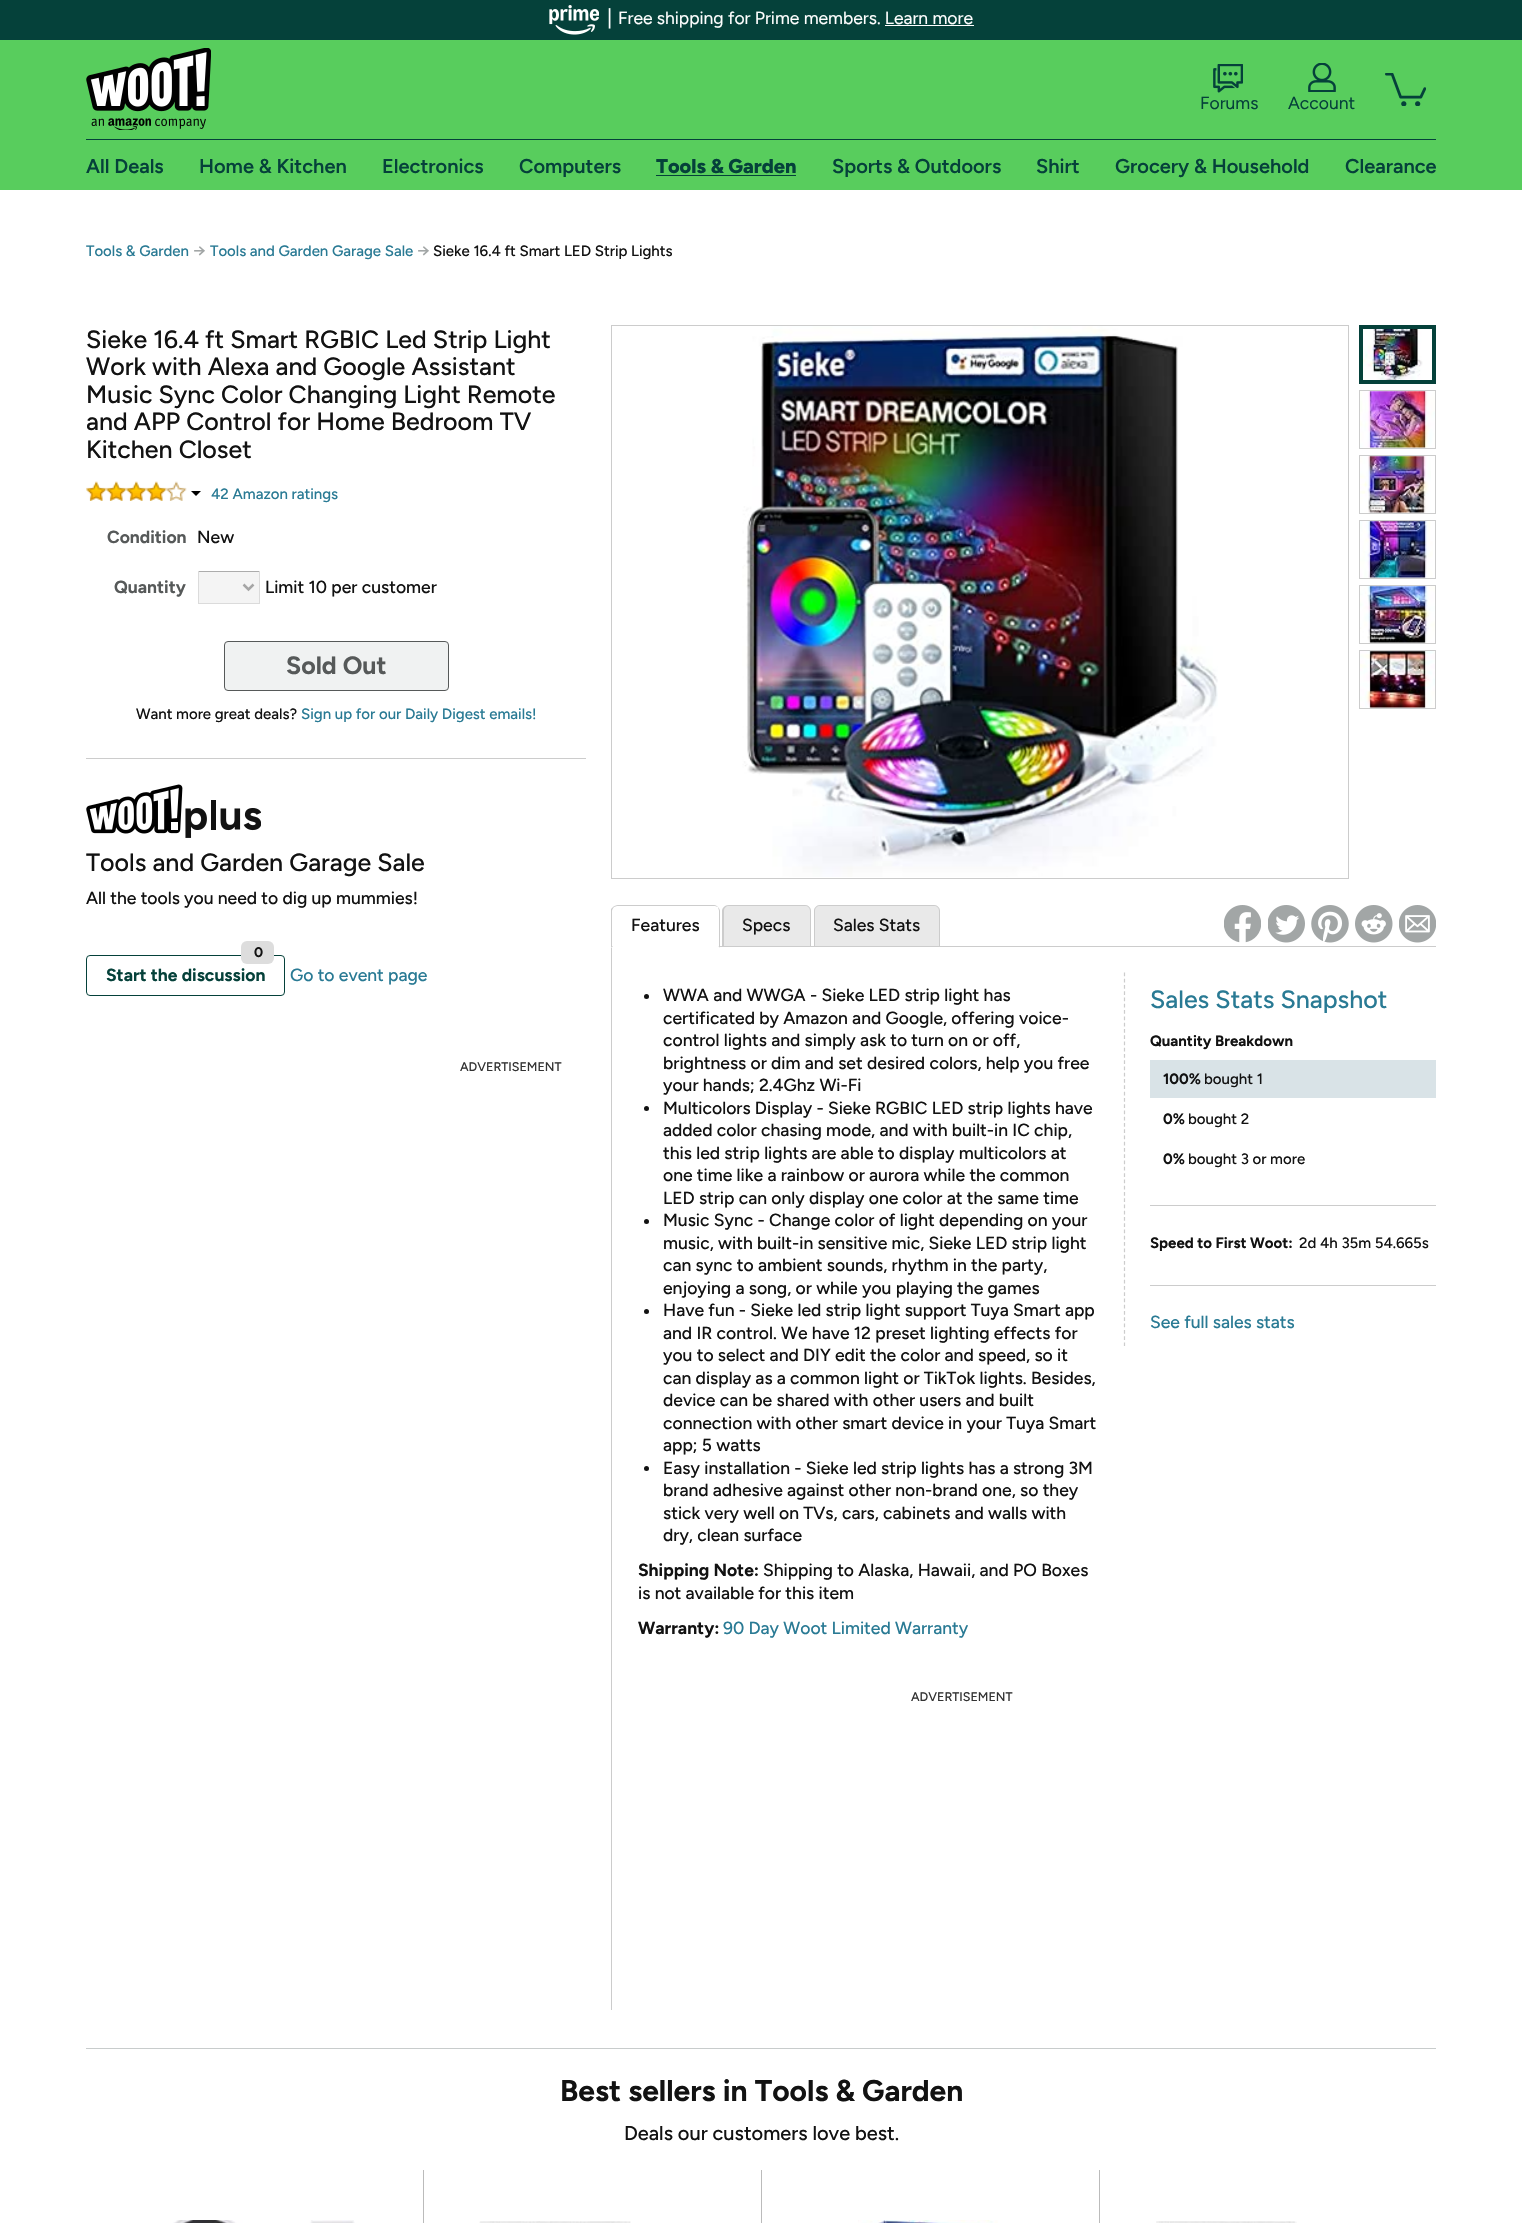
void draw(SkCanvas* canvas) {
  SkPaint paint;
  paint.setAntiAlias(true);
  auto face = [&](const char* family, int weight, float size, bool italic = false) {
    SkFontStyle style(weight, SkFontStyle::kNormal_Width,
      italic ? SkFontStyle::kItalic_Slant : SkFontStyle::kUpright_Slant);
    SkFont result(fontMgr->matchFamilyStyle(family, style), size);
    result.setSubpixel(true);
    return result;
  };
  auto paste = [&](const char* path, float x, float y, float w, float h) {
    auto image = SkImages::DeferredFromEncodedData(SkData::MakeFromFileName(path));
    canvas->drawImageRect(image, SkRect::MakeXYWH(x, y, w, h), SkSamplingOptions());
  };
  auto shape = [&](const char* data, bool evenOdd = false) {
    SkPath result = *SkParsePath::FromSVGString(data);
    if (evenOdd) result.setFillType(SkPathFillType::kEvenOdd);
    return result;
  };
  canvas->clear(0xffffffff);
  paint.setColor(0xff05413a);
  canvas->drawRect(SkRect::MakeXYWH(0, 0, 1522, 40), paint);
  paste("img/1.png", 549, 5, 50, 30);
  {
    const struct { float x, y, w, h; SkColor color; } items[] = {
      {885, 25, 89, 1, 0xffffffff},
      {0, 40, 1522, 150, 0xff58cd5d},
      {86, 139, 1350, 1, 0xff05413a},
    };
    for (auto [x, y, w, h, color] : items) {
      paint.setColor(color);
      canvas->drawRect(SkRect::MakeXYWH(x, y, w, h), paint);
    }
  }
  paste("img/2.png", 86, 48, 125, 82);
  paste("img/3.png", 1213, 64, 30, 29);
  paste("img/4.png", 1308, 63, 28, 29);
  paste("img/5.png", 1385, 73, 41, 33);
  canvas->drawRect(SkRect::MakeXYWH(656, 175, 140, 1), paint);
  paint.setColor(0xffcccccc);
  canvas->drawRect(SkRect::MakeXYWH(86, 758, 500, 1), paint);
  paste("img/6.png", 86, 481, 101, 20);
  paint.setColor(0xff000000);
  canvas->drawPath(shape("M191 491H201L196 496Z"), paint);
  {
    const struct { float x, y, w, h; SkColor color; } items[] = {
      {199, 572, 60, 31, 0xfff4f4f4},
      {198, 571, 62, 1, 0xffacacac},
      {259, 571, 1, 33, 0xffdbdbdb},
      {198, 603, 62, 1, 0xffdbdbdb},
      {198, 571, 1, 33, 0xffdbdbdb},
    };
    for (auto [x, y, w, h, color] : items) {
      paint.setColor(color);
      canvas->drawRect(SkRect::MakeXYWH(x, y, w, h), paint);
    }
  }
  paint.setStroke(true);
  paint.setStrokeWidth(2.5f);
  paint.setColor(0xffa6a6a6);
  canvas->drawPath(shape("M243.5 584.5L248.5 589.5L253.5 584.5"), paint);
  paint.setStroke(false);
  paint.setColor(0xfff0f2f2);
  canvas->drawRoundRect(SkRect::MakeXYWH(224.5f, 641.5f, 224, 49), 3.5f, 3.5f, paint);
  paint.setStroke(true);
  paint.setStrokeWidth(1);
  paint.setColor(0xff565959);
  canvas->drawRoundRect(SkRect::MakeXYWH(224.5f, 641.5f, 224, 49), 3.5f, 3.5f, paint);
  paste("img/7.png", 86, 784, 175, 54);
  paint.setColor(0xff05413a);
  canvas->drawRoundRect(SkRect::MakeXYWH(86.5f, 955.5f, 198, 40), 3.5f, 3.5f, paint);
  paint.setStroke(false);
  paint.setColor(0xffdddddd);
  canvas->drawRoundRect(SkRect::MakeXYWH(241, 941, 33, 23), 6, 6, paint);
  paint.setStroke(true);
  paint.setColor(0xffcccccc);
  canvas->drawRect(SkRect::MakeXYWH(611.5f, 325.5f, 737, 553), paint);
  paste("img/8.png", 742, 326, 476, 551);
  paint.setColor(0xff05413a);
  canvas->drawRect(SkRect::MakeXYWH(1359.5f, 325.5f, 76, 58), paint);
  paste("img/9.png", 1363, 329, 60, 51);
  paint.setStrokeWidth(3);
  canvas->drawRect(SkRect::MakeXYWH(1361.5f, 327.5f, 72, 54), paint);
  paint.setStrokeWidth(1);
  paint.setColor(0xffcccccc);
  canvas->drawRect(SkRect::MakeXYWH(1359.5f, 390.5f, 76, 58), paint);
  paste("img/10.png", 1360, 391, 75, 57);
  canvas->drawRect(SkRect::MakeXYWH(1359.5f, 455.5f, 76, 58), paint);
  paste("img/11.png", 1360, 456, 71, 57);
  canvas->drawRect(SkRect::MakeXYWH(1359.5f, 520.5f, 76, 58), paint);
  paste("img/12.png", 1360, 521, 73, 57);
  canvas->drawRect(SkRect::MakeXYWH(1359.5f, 585.5f, 76, 58), paint);
  paste("img/13.png", 1360, 586, 75, 57);
  canvas->drawRect(SkRect::MakeXYWH(1359.5f, 650.5f, 76, 58), paint);
  paste("img/14.png", 1360, 651, 75, 57);
  paste("img/15.png", 1224, 905, 37, 38);
  paste("img/16.png", 1268, 905, 37, 38);
  paste("img/17.png", 1311, 905, 38, 38);
  paste("img/18.png", 1355, 905, 38, 38);
  paste("img/19.png", 1399, 905, 37, 38);
  paint.setStroke(false);
  canvas->drawRect(SkRect::MakeXYWH(720, 946, 716, 1), paint);
  canvas->drawPath(shape("M618 905C616 905 614 906 613 907H614L617 906H715L718 907C717 906 716 905 714 905Z"), paint);
  canvas->drawPath(shape("M720 948V911C720 910 719 908 718 907C718 908 719 910 719 911V946H718Z"), paint);
  paint.setColor(0xffffffff);
  canvas->drawPath(shape("M720 948L718 946H613L611 948Z"), paint);
  paint.setColor(0xffcccccc);
  canvas->drawPath(shape("M611 948V909L613 907H614C613 908 612 910 612 911V946H613Z"), paint);
  paint.setColor(0xffe9e9e9);
  canvas->drawPath(shape("M729 905H805C808.5 905 811 907.5 811 911V946H723V911C723 907.5 725.5 905 729 905Z"), paint);
  paint.setColor(0xffcccccc);
  canvas->drawPath(shape("M729 905H805C808 905 811 908 811 911V946H722V911C722 908 725 905 729 905ZM729 906H805C808 906 810 908 810 911V946H724V911C724 908 726 906 729 906Z", true), paint);
  paint.setColor(0xffe9e9e9);
  canvas->drawPath(shape("M820 905H934C937.5 905 940 907.5 940 911V946H814V911C814 907.5 816.5 905 820 905Z"), paint);
  paint.setColor(0xffcccccc);
  canvas->drawPath(shape("M820 905H934C937 905 940 908 940 911V946H814V911C814 908 817 905 820 905ZM820 906H934C937 906 939 908 939 911V946H815V911C815 908 817 906 820 906Z", true), paint);
  canvas->drawRect(SkRect::MakeXYWH(611, 948, 1, 1062), paint);
  paint.setColor(0xff121212);
  canvas->drawCircle(646.5f, 996.5f, 2.5f, paint);
  canvas->drawCircle(646.5f, 1108.5f, 2.5f, paint);
  canvas->drawCircle(646.5f, 1221.5f, 2.5f, paint);
  canvas->drawCircle(646.5f, 1311.5f, 2.5f, paint);
  canvas->drawCircle(646.5f, 1468.5f, 2.5f, paint);
  paint.setStroke(true);
  paint.setStrokeWidth(1.2f);
  paint.setColor(0xffcccccc);
  paint.setPathEffect(SkDashPathEffect::Make({{3.75f, 2.52f}}, 0));
  canvas->drawPath(shape("M1124.5 972.5V1346"), paint);
  paint.setPathEffect(nullptr);
  paint.setStroke(false);
  {
    const struct { float x, y, w, h; SkColor color; } items[] = {
      {1150, 1205, 286, 1, 0xffcccccc},
      {1150, 1060, 286, 38, 0xffd9e3e7},
      {1150, 1285, 286, 1, 0xffcccccc},
      {86, 2048, 1350, 1, 0xffc8cccc},
      {423, 2170, 1, 53, 0xffbbbbbb},
    };
    for (auto [x, y, w, h, color] : items) {
      paint.setColor(color);
      canvas->drawRect(SkRect::MakeXYWH(x, y, w, h), paint);
    }
  }
  paste("img/20.png", 173, 2220, 182, 3);
  canvas->drawRect(SkRect::MakeXYWH(761, 2170, 1, 53), paint);
  paste("img/21.png", 479, 2221, 152, 2);
  canvas->drawRect(SkRect::MakeXYWH(1099, 2170, 1, 53), paint);
  paste("img/22.png", 858, 2220, 140, 3);
  paste("img/23.png", 1156, 2221, 141, 2);
  auto f0 = face("Figtree", 400, 20);
  paint.setColor(0xffffffff);
  canvas->drawString("|", 607, 24, f0, paint);
  auto f1 = face("Figtree", 400, 17.5f);
  canvas->drawString("Free shipping for Prime members. Learn more", 618, 24, f1, paint);
  paint.setColor(0xff05413a);
  canvas->drawString("Forums", 1200, 109, f1, paint);
  canvas->drawString("Account", 1288, 109, f1, paint);
  auto f2 = face("Figtree", 600, 20);
  {
    const struct { const char* s; float x, y; } items[] = {
      {"All Deals", 86, 173},
      {"Home & Kitchen", 199, 173},
      {"Electronics", 382, 173},
      {"Computers", 519, 173},
    };
    for (auto [s, x, y] : items) {
      canvas->drawString(s, x, y, f2, paint);
    }
  }
  auto f3 = face("Figtree", 800, 20);
  canvas->drawString("Tools & Garden", 656, 173, f3, paint);
  {
    const struct { const char* s; float x, y; } items[] = {
      {"Sports & Outdoors", 832, 173},
      {"Shirt", 1036, 173},
      {"Grocery & Household", 1115, 173},
      {"Clearance", 1345, 173},
    };
    for (auto [s, x, y] : items) {
      canvas->drawString(s, x, y, f2, paint);
    }
  }
  auto f4 = face("Figtree", 500, 15);
  paint.setColor(0xff297a94);
  canvas->drawString("Tools & Garden", 86, 256, f4, paint);
  auto f5 = face("Figtree", 500, 17.5f);
  paint.setColor(0xffa2a6a6);
  canvas->drawString("→", 193, 256, f5, paint);
  paint.setColor(0xff297a94);
  canvas->drawString("Tools and Garden Garage Sale", 210, 256, f4, paint);
  paint.setColor(0xffa2a6a6);
  canvas->drawString("→", 417, 256, f5, paint);
  paint.setColor(0xff121212);
  canvas->drawString("Sieke 16.4 ft Smart LED Strip Lights", 433, 256, f4, paint);
  auto f6 = face("Figtree", 500, 25);
  {
    const struct { const char* s; float x, y; } items[] = {
      {"Sieke 16.4 ft Smart RGBIC Led Strip Light", 86, 348},
      {"Work with Alexa and Google Assistant", 86, 375},
      {"Music Sync Color Changing Light Remote", 86, 403},
      {"and APP Control for Home Bedroom TV", 86, 430},
      {"Kitchen Closet", 86, 458},
    };
    for (auto [s, x, y] : items) {
      canvas->drawString(s, x, y, f6, paint);
    }
  }
  paint.setColor(0xff297a94);
  canvas->drawString("42 Amazon ratings", 211, 499, f4, paint);
  auto f7 = face("Figtree", 700, 17.5f);
  paint.setColor(0xff565959);
  canvas->drawString("Condition", 107, 543, f7, paint);
  paint.setColor(0xff121212);
  canvas->drawString("New", 197, 543, f5, paint);
  paint.setColor(0xff565959);
  canvas->drawString("Quantity", 114, 593, f7, paint);
  paint.setColor(0xff121212);
  canvas->drawString("Limit 10 per customer", 265, 593, f5, paint);
  auto f8 = face("Figtree", 700, 25);
  paint.setColor(0xff565959);
  canvas->drawString("Sold Out", 286, 674, f8, paint);
  paint.setColor(0xff121212);
  canvas->drawString("Want more great deals?", 136, 719, f4, paint);
  paint.setColor(0xff297a94);
  canvas->drawString("Sign up for our Daily Digest emails!", 301, 719, f4, paint);
  paint.setColor(0xff121212);
  canvas->drawString("Tools and Garden Garage Sale", 86, 871, f6, paint);
  canvas->drawString("All the tools you need to dig up mummies!", 86, 904, f5, paint);
  auto f9 = face("Figtree", 700, 14);
  canvas->drawString("0", 254, 957, f9, paint);
  paint.setColor(0xff05413a);
  canvas->drawString("Start the discussion", 106, 981, f7, paint);
  paint.setColor(0xff297a94);
  canvas->drawString("Go to event page", 290, 981, f5, paint);
  auto f10 = face("Figtree", 500, 12.5f);
  paint.setColor(0xff333333);
  canvas->drawString("ADVERTISEMENT", 460, 1071, f10, paint);
  paint.setColor(0xff121212);
  {
    const struct { const char* s; float x, y; } items[] = {
      {"Features", 631, 931},
      {"Specs", 742, 931},
      {"Sales Stats", 833, 931},
      {"WWA and WWGA - Sieke LED strip light has", 663, 1001},
      {"certificated by Amazon and Google, offering voice-", 663, 1024},
      {"control lights and simply ask to turn on or off,", 663, 1046},
      {"brightness or dim and set desired colors, help you free", 663, 1069},
      {"your hands; 2.4Ghz Wi-Fi", 663, 1091},
      {"Multicolors Display - Sieke RGBIC LED strip lights have", 663, 1114},
      {"added color chasing mode, and with built-in IC chip,", 663, 1136},
      {"this led strip lights are able to display multicolors at", 663, 1159},
      {"one time like a rainbow or aurora while the common", 663, 1181},
      {"LED strip can only display one color at the same time", 663, 1204},
      {"Music Sync - Change color of light depending on your", 663, 1226},
      {"music, with built-in sensitive mic, Sieke LED strip light", 663, 1249},
      {"can sync to ambient sounds, rhythm in the party,", 663, 1271},
      {"enjoying a song, or while you playing the games", 663, 1294},
      {"Have fun - Sieke led strip light support Tuya Smart app", 663, 1316},
      {"and IR control. We have 12 preset lighting effects for", 663, 1339},
      {"you to select and DIY edit the color and speed, so it", 663, 1361},
      {"can display as a common light or TikTok lights. Besides,", 663, 1384},
      {"device can be shared with other users and built", 663, 1406},
      {"connection with other smart device in your Tuya Smart", 663, 1429},
      {"app; 5 watts", 663, 1451},
      {"Easy installation - Sieke led strip lights has a strong 3M", 663, 1474},
      {"brand adhesive against other non-brand one, so they", 663, 1496},
      {"stick very well on TVs, cars, cabinets and walls with", 663, 1519},
      {"dry, clean surface", 663, 1541},
    };
    for (auto [s, x, y] : items) {
      canvas->drawString(s, x, y, f5, paint);
    }
  }
  canvas->drawString("Shipping Note:", 638, 1576, f7, paint);
  canvas->drawString("Shipping to Alaska, Hawaii, and PO Boxes", 763, 1576, f5, paint);
  canvas->drawString("is not available for this item", 638, 1599, f5, paint);
  canvas->drawString("Warranty:", 638, 1634, f7, paint);
  paint.setColor(0xff297a94);
  canvas->drawString("90 Day Woot Limited Warranty", 723, 1634, f5, paint);
  canvas->drawString("Sales Stats Snapshot", 1150, 1008, f6, paint);
  auto f11 = face("Figtree", 700, 15);
  paint.setColor(0xff121212);
  canvas->drawString("Quantity Breakdown", 1150, 1046, f11, paint);
  canvas->drawString("100%", 1163, 1084, f11, paint);
  canvas->drawString("bought 1", 1204, 1084, f4, paint);
  canvas->drawString("0%", 1163, 1124, f11, paint);
  canvas->drawString("bought 2", 1188, 1124, f4, paint);
  canvas->drawString("0%", 1163, 1164, f11, paint);
  canvas->drawString("bought 3 or more", 1188, 1164, f4, paint);
  canvas->drawString("Speed to First Woot:", 1150, 1248, f11, paint);
  canvas->drawString("2d 4h 35m 54.665s", 1299, 1248, f4, paint);
  paint.setColor(0xff297a94);
  canvas->drawString("See full sales stats", 1150, 1328, f5, paint);
  paint.setColor(0xff333333);
  canvas->drawString("ADVERTISEMENT", 911, 1701, f10, paint);
  auto f12 = face("Figtree", 700, 30);
  paint.setColor(0xff121212);
  canvas->drawString("Best sellers in Tools & Garden", 560, 2101, f12, paint);
  auto f13 = face("Figtree", 500, 20);
  canvas->drawString("Deals our customers love best.", 624, 2140, f13, paint);
}
